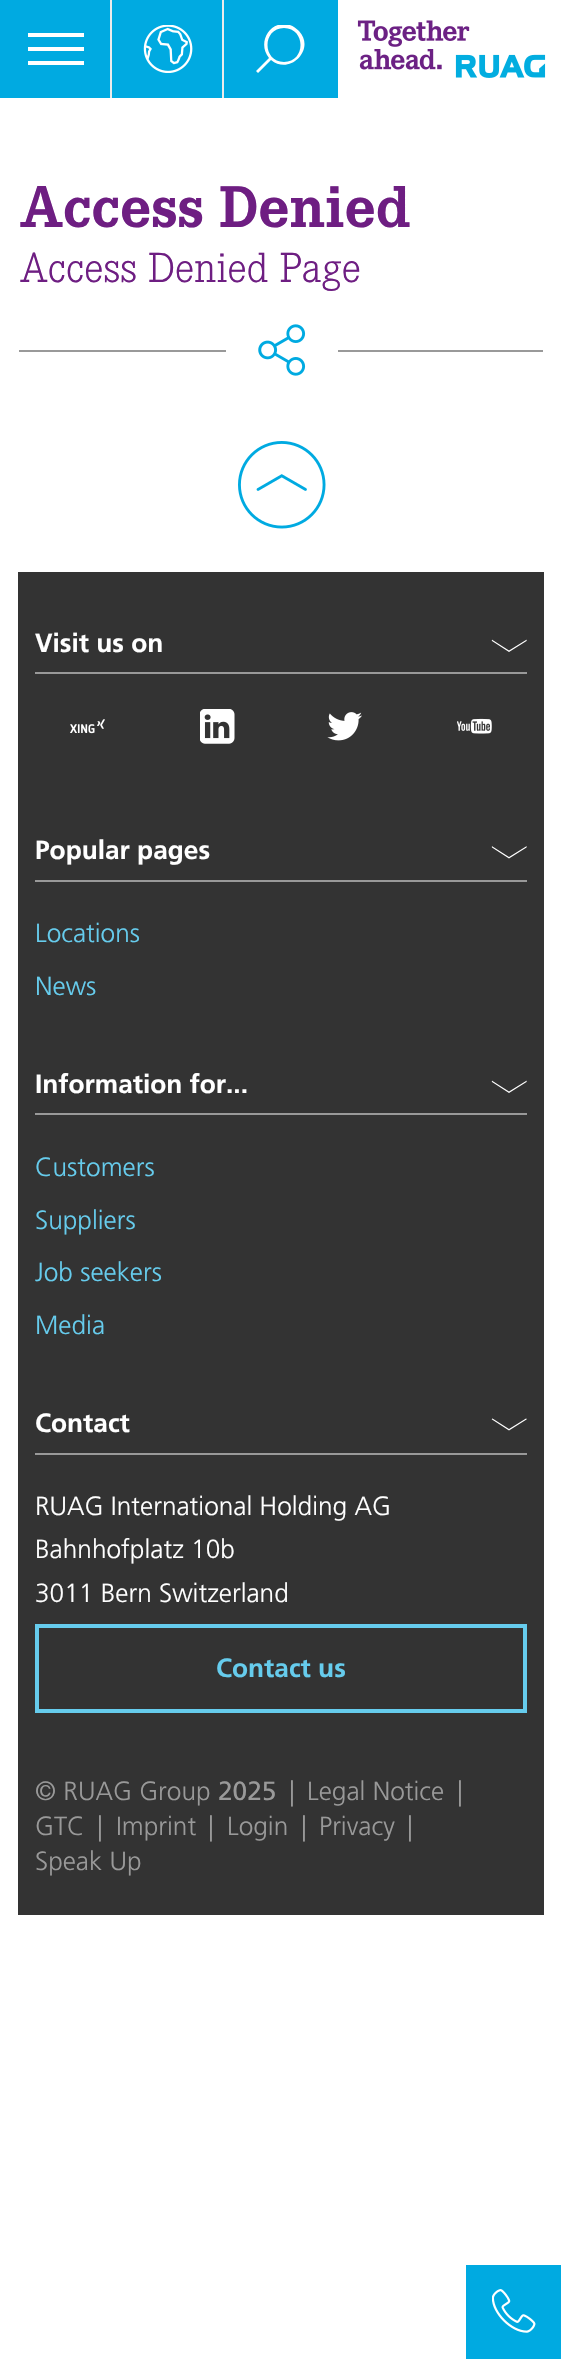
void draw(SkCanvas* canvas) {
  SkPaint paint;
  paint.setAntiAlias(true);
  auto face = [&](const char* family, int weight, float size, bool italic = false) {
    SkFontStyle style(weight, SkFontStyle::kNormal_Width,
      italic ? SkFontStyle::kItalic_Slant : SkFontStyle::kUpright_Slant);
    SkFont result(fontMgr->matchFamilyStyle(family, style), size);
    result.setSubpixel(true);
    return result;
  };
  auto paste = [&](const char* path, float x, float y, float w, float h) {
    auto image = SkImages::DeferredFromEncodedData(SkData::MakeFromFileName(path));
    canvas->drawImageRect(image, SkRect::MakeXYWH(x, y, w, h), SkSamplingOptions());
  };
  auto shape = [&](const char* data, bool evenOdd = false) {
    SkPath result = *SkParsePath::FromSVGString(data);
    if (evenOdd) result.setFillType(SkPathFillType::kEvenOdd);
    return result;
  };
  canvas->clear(0xffffffff);
  {
    const struct { float x, y, w, h; SkColor color; } items[] = {
      {0, 0, 110, 98, 0xff00aae1},
      {110, 0, 2, 98, 0xffebebeb},
      {28, 33, 56, 4, 0xffffffff},
      {28, 47, 56, 4, 0xffffffff},
      {28, 61, 56, 4, 0xffffffff},
      {112, 0, 110, 98, 0xff00aae1},
      {222, 0, 2, 98, 0xffebebeb},
    };
    for (auto [x, y, w, h, color] : items) {
      paint.setColor(color);
      canvas->drawRect(SkRect::MakeXYWH(x, y, w, h), paint);
    }
  }
  paste("img/1.png", 143, 25, 50, 48);
  paint.setColor(0xff00aae1);
  canvas->drawRect(SkRect::MakeXYWH(224, 0, 114, 98), paint);
  canvas->save();
  canvas->clipRect(SkRect::MakeXYWH(252, 25, 56, 48));
  paint.setColor(0xffffffff);
  canvas->drawPath(shape("M284 24C267 24 258 45 269 58L256 71L258 73L271 60C290 76 316 49 299 31C295 27 290 24 284 24ZM284 62C262 62 262 28 284 28C306 28 306 62 284 62Z"), paint);
  canvas->restore();
  paste("img/2.png", 357, 20, 189, 58);
  paint.setColor(0xff999999);
  canvas->drawRect(SkRect::MakeXYWH(19, 350, 524, 2), paint);
  paint.setColor(0xffffffff);
  canvas->drawRect(SkRect::MakeXYWH(226, 350, 112, 2), paint);
  paste("img/3.png", 258, 324, 48, 52);
  paste("img/4.png", 238, 441, 88, 88);
  paint.setColor(0xff333333);
  canvas->drawRect(SkRect::MakeXYWH(18, 572, 526, 1343), paint);
  paint.setColor(0xff999999);
  canvas->drawRect(SkRect::MakeXYWH(35, 672, 492, 2), paint);
  paint.setColor(0xffffffff);
  canvas->drawPath(shape("M509 652L492 641C492 640.5 491.5 640.5 492 640C492 639.5 492.5 639.5 492.5 640L509 650.5L526 640C526.5 639.5 527 640.5 526.5 641Z"), paint);
  paste("img/5.png", 70, 719, 35, 15);
  paste("img/6.png", 200, 709, 35, 35);
  paste("img/7.png", 327, 712, 35, 29);
  paste("img/8.png", 457, 718, 35, 16);
  paint.setColor(0xff999999);
  canvas->drawRect(SkRect::MakeXYWH(35, 880, 492, 2), paint);
  paint.setColor(0xffffffff);
  canvas->drawPath(shape("M509 858.5L492 847.5C492 847 491.5 847 492 846.5C492 846 492.5 846 492.5 846.5L509 857L526 846.5C526.5 846 527 847 526.5 847.5Z"), paint);
  paint.setColor(0xff999999);
  canvas->drawRect(SkRect::MakeXYWH(35, 1113, 492, 2), paint);
  paint.setColor(0xffffffff);
  canvas->drawPath(shape("M509 1093L492 1082C492 1081.5 491.5 1081.5 492 1081C492 1080.5 492.5 1080.5 492.5 1081L509 1091.5L526 1081C526.5 1080.5 527 1081.5 526.5 1082Z"), paint);
  paint.setColor(0xff999999);
  canvas->drawRect(SkRect::MakeXYWH(35, 1453, 492, 2), paint);
  paint.setColor(0xffffffff);
  canvas->drawPath(shape("M509 1430.5L492 1419.5C492 1419.5 491.5 1419 492 1419C492 1418.5 492.5 1418.5 492.5 1418.5L509 1429L526 1418.5C526.5 1418 527 1419.5 526.5 1419.5Z"), paint);
  paint.setStroke(true);
  paint.setStrokeWidth(4);
  paint.setColor(0xff66cced);
  canvas->drawRect(SkRect::MakeXYWH(37, 1626, 488, 85), paint);
  paint.setStroke(false);
  paint.setColor(0xff00aae1);
  canvas->drawRect(SkRect::MakeXYWH(466, 2265, 95, 94), paint);
  paste("img/9.png", 492, 2289, 44, 44);
  auto f0 = face("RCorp", 700, 61.25f);
  paint.setColor(0xff6e1e82);
  canvas->drawString("Access Denied", 20, 227, f0, paint);
  auto f1 = face("RCorp", 300, 43.75f);
  canvas->drawString("Access Denied Page", 20, 282, f1, paint);
  auto f2 = face("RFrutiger", 700, 26.25f);
  paint.setColor(0xffffffff);
  canvas->drawString("Visit us on", 35, 652, f2, paint);
  canvas->drawString("Popular pages", 35, 859, f2, paint);
  auto f3 = face("RFrutiger", 300, 26.25f);
  paint.setColor(0xff66cced);
  canvas->drawString("Locations", 35, 942, f3, paint);
  canvas->drawString("News", 35, 995, f3, paint);
  paint.setColor(0xffffffff);
  canvas->drawString("Information for...", 35, 1093, f2, paint);
  paint.setColor(0xff66cced);
  {
    const struct { const char* s; float x, y; } items[] = {
      {"Customers", 35, 1176},
      {"Suppliers", 35, 1229},
      {"Job seekers", 35, 1281},
      {"Media", 35, 1334},
    };
    for (auto [s, x, y] : items) {
      canvas->drawString(s, x, y, f3, paint);
    }
  }
  paint.setColor(0xffffffff);
  canvas->drawString("Contact", 35, 1432, f2, paint);
  {
    const struct { const char* s; float x, y; } items[] = {
      {"RUAG International Holding AG", 35, 1515},
      {"Bahnhofplatz 10b", 35, 1558},
      {"3011 Bern Switzerland", 35, 1602},
    };
    for (auto [s, x, y] : items) {
      canvas->drawString(s, x, y, f3, paint);
    }
  }
  paint.setColor(0xff66cced);
  canvas->drawString("Contact us", 216, 1677, f2, paint);
  paint.setColor(0xff999999);
  canvas->drawString("© RUAG Group", 35, 1800, f3, paint);
  auto f4 = face("RFrutiger", 400, 26.25f);
  canvas->drawString("2025", 218, 1800, f4, paint);
  {
    const struct { const char* s; float x, y; } items[] = {
      {"|", 289, 1800},
      {"Legal Notice", 307, 1800},
      {"|", 457, 1800},
      {"GTC", 35, 1835},
      {"|", 97, 1835},
      {"Imprint", 116, 1835},
      {"|", 208, 1835},
      {"Login", 227, 1835},
      {"|", 301, 1835},
      {"Privacy", 319, 1835},
      {"|", 407, 1835},
      {"Speak Up", 35, 1870},
    };
    for (auto [s, x, y] : items) {
      canvas->drawString(s, x, y, f3, paint);
    }
  }
}
